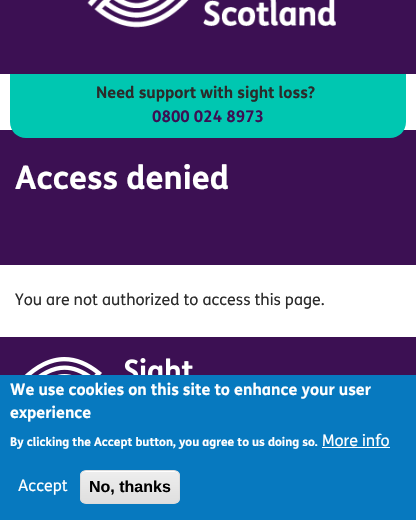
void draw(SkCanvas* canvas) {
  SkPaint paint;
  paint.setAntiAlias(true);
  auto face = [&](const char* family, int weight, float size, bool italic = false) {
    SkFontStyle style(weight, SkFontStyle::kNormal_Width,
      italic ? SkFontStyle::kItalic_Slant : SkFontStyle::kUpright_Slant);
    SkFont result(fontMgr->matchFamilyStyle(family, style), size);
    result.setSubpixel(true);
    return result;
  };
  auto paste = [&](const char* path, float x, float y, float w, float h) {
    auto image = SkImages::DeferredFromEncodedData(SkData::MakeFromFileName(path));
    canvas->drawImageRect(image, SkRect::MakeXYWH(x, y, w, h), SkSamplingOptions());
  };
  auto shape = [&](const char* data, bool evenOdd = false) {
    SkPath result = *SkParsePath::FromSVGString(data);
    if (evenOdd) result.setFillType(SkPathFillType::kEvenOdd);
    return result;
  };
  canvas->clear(0xffffffff);
  paint.setColor(0xff3c1053);
  canvas->drawRect(SkRect::MakeXYWH(0, 0, 416, 74), paint);
  paste("img/1.png", 87, 0, 249, 28);
  canvas->drawRect(SkRect::MakeXYWH(0, 130, 416, 135), paint);
  paint.setColor(0xff00c7b1);
  canvas->drawPath(shape("M10 74H406V122C406 131 399 138 390 138H26C17 138 10 131 10 122Z"), paint);
  paint.setColor(0xff3c1053);
  canvas->drawRect(SkRect::MakeXYWH(0, 337, 416, 38), paint);
  paste("img/2.png", 24, 357, 169, 18);
  paint.setColor(0xff0779bf);
  canvas->drawRect(SkRect::MakeXYWH(0, 375, 416, 145), paint);
  paint.setColor(0xffffffff);
  canvas->drawRect(SkRect::MakeXYWH(322, 447, 68, 1), paint);
  canvas->save();
  canvas->clipPath(shape("M86 470H174C177.5 470 180 472.5 180 476V498C180 501.5 177.5 504 174 504H86C82.5 504 80 501.5 80 498V476C80 472.5 82.5 470 86 470Z"), true);
  {
    const SkColor colors[] = {0xffededed, 0xffdfdfdf};
    const float stops[] = {0.05f, 1};
    const SkPoint ends[] = {{130, 471}, {130, 503}};
    paint.setShader(SkGradientShader::MakeLinear(ends, colors, stops, 2, SkTileMode::kClamp));
    paint.setAlpha(255);
  }
  canvas->drawRect(SkRect::MakeXYWH(80, 471, 100, 32), paint);
  canvas->restore();
  paint.setShader(nullptr);
  paint.setColor(0xffffffff);
  canvas->drawPath(shape("M86 472H174C177 472 179 474 179 477C179 467 165 471 159 471H101C95 471 81 467 81 477C81 474 83 472 86 472Z"), paint);
  paint.setStroke(true);
  paint.setStrokeWidth(1);
  paint.setColor(0xffdcdcdc);
  canvas->drawRoundRect(SkRect::MakeXYWH(80.5f, 470.5f, 99, 33), 5.5f, 5.5f, paint);
  auto f0 = face("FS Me", 700, 16);
  paint.setStroke(false);
  paint.setColor(0xff2b2b2b);
  canvas->drawString("Need support with sight loss?", 96, 98, f0, paint);
  paint.setColor(0xff3c1053);
  canvas->drawString("0800 024 8973", 152, 122, f0, paint);
  auto f1 = face("FS Me", 700, 32.5f);
  paint.setColor(0xffffffff);
  canvas->drawString("Access denied", 15, 189, f1, paint);
  auto f2 = face("FS Me", 400, 16);
  paint.setColor(0xff2b2b2b);
  canvas->drawString("You are not authorized to access this page.", 15, 305, f2, paint);
  paint.setColor(0xffffffff);
  canvas->drawString("We use cookies on this site to enhance your user", 10, 395, f0, paint);
  canvas->drawString("experience", 10, 418, f0, paint);
  auto f3 = face("FS Me", 700, 12);
  canvas->drawString("By clicking the Accept button, you agree to us doing so.", 10, 446, f3, paint);
  canvas->drawString("More info", 322, 446, f2, paint);
  canvas->drawString("Accept", 18, 491, f2, paint);
  auto f4 = face("Liberation Sans", 700, 16);
  paint.setColor(0xff000000);
  canvas->drawString("No, thanks", 89, 492, f4, paint);
}
